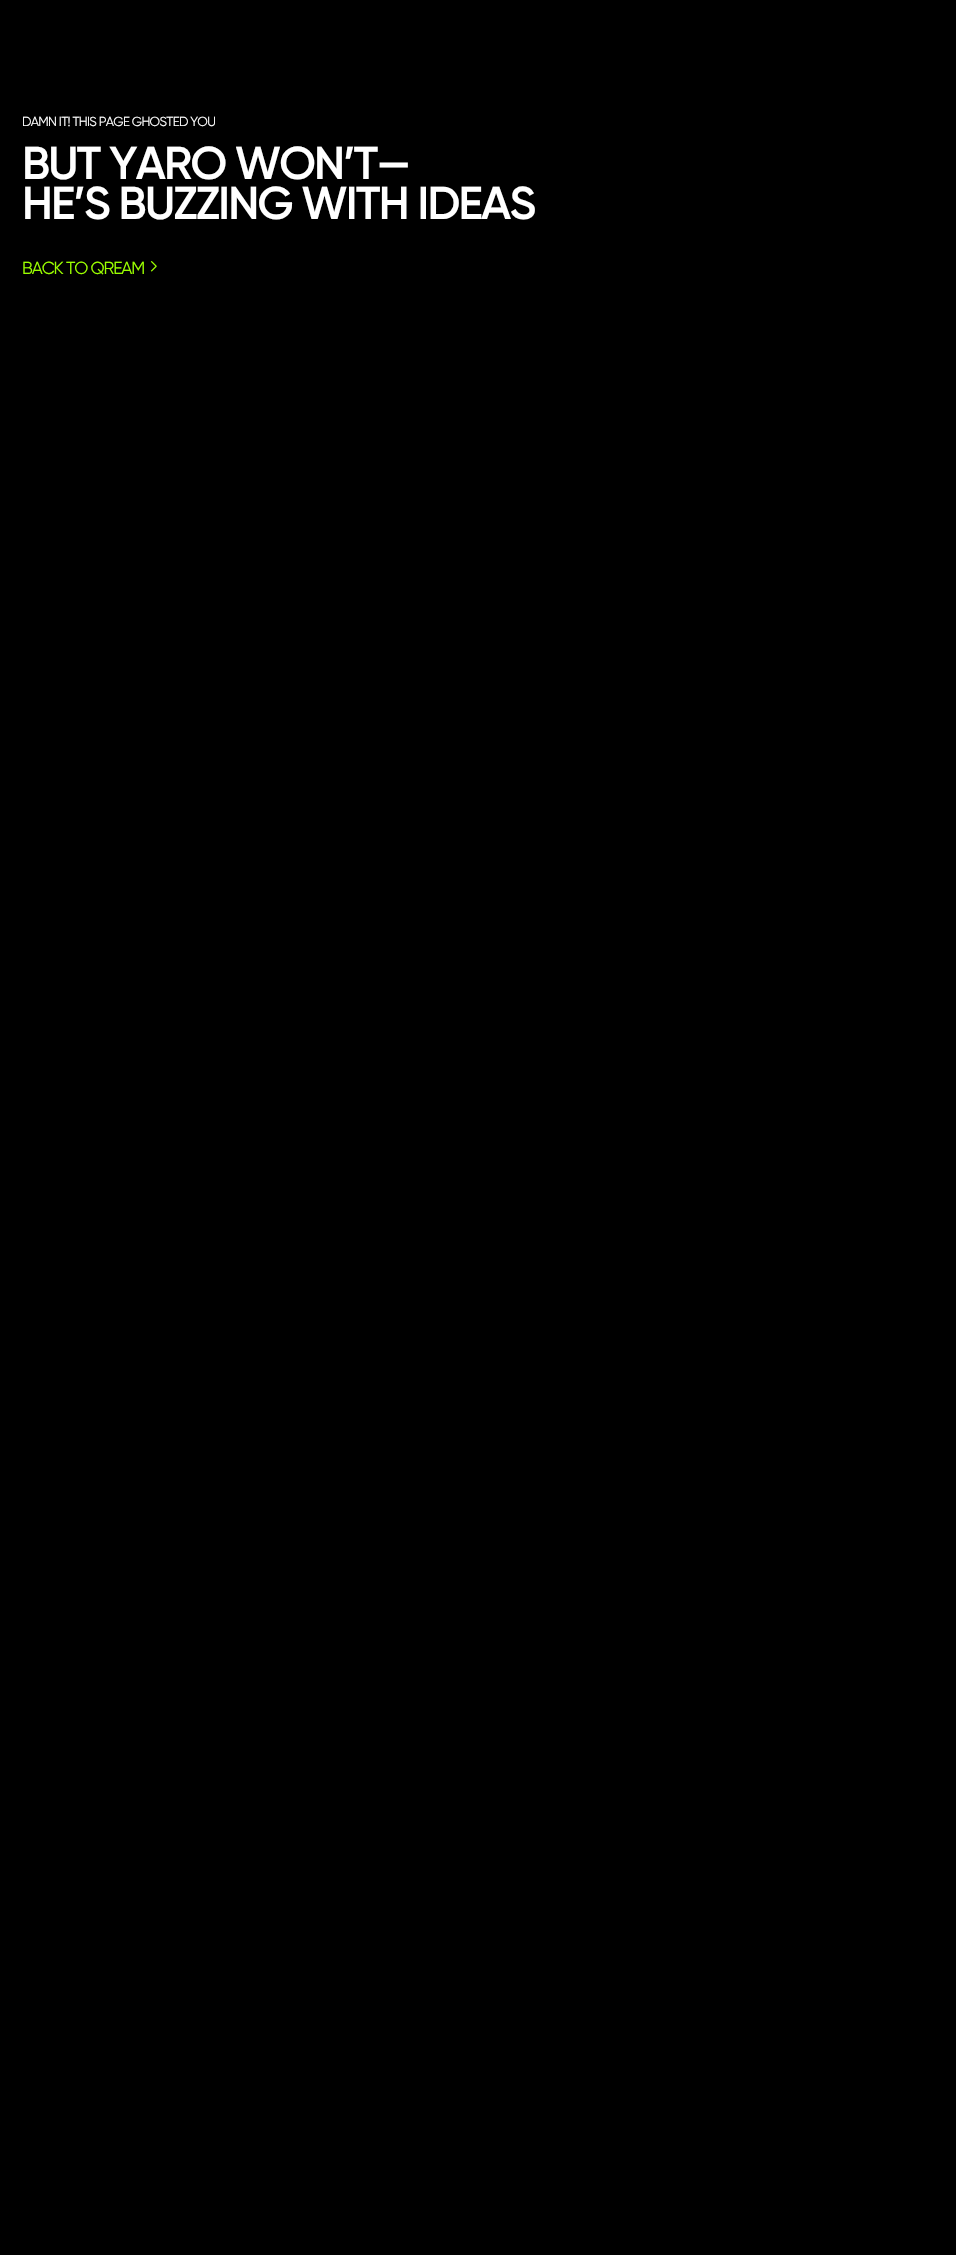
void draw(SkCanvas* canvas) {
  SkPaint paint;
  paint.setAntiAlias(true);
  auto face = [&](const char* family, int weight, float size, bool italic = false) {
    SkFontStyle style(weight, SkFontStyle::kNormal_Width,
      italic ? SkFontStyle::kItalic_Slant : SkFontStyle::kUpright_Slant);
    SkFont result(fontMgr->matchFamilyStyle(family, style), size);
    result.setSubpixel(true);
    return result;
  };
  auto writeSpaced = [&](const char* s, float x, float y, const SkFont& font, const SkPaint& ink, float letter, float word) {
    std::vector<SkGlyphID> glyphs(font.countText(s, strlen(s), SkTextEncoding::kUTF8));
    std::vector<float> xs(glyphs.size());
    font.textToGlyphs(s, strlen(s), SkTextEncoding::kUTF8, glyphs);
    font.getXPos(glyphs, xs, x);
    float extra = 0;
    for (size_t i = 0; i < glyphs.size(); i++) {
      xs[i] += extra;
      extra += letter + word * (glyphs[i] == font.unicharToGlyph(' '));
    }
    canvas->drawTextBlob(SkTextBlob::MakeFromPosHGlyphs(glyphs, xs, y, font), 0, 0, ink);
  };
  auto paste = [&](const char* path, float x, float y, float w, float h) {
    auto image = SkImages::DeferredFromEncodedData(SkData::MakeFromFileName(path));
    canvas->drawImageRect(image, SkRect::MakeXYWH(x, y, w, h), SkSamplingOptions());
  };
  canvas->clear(0xff000000);
  paste("img/1.png", 150, 261, 7, 11);
  auto f0 = face("Gilroy", 400, 13.1f);
  paint.setColor(0xffffffff);
  writeSpaced("DAMN IT! THIS PAGE GHOSTED YOU", 22, 126, f0, paint, -0.7f, 0);
  auto f1 = face("Gilroy", 600, 46);
  writeSpaced("BUT YARO WON’T—", 22, 179, f1, paint, -1.8f, 0);
  writeSpaced("HE’S BUZZING WITH IDEAS", 22, 219, f1, paint, -1.8f, 0);
  auto f2 = face("Gilroy", 400, 17.5f);
  paint.setColor(0xff9bff00);
  writeSpaced("BACK TO QREAM", 22, 274, f2, paint, -1.1f, 0);
}
